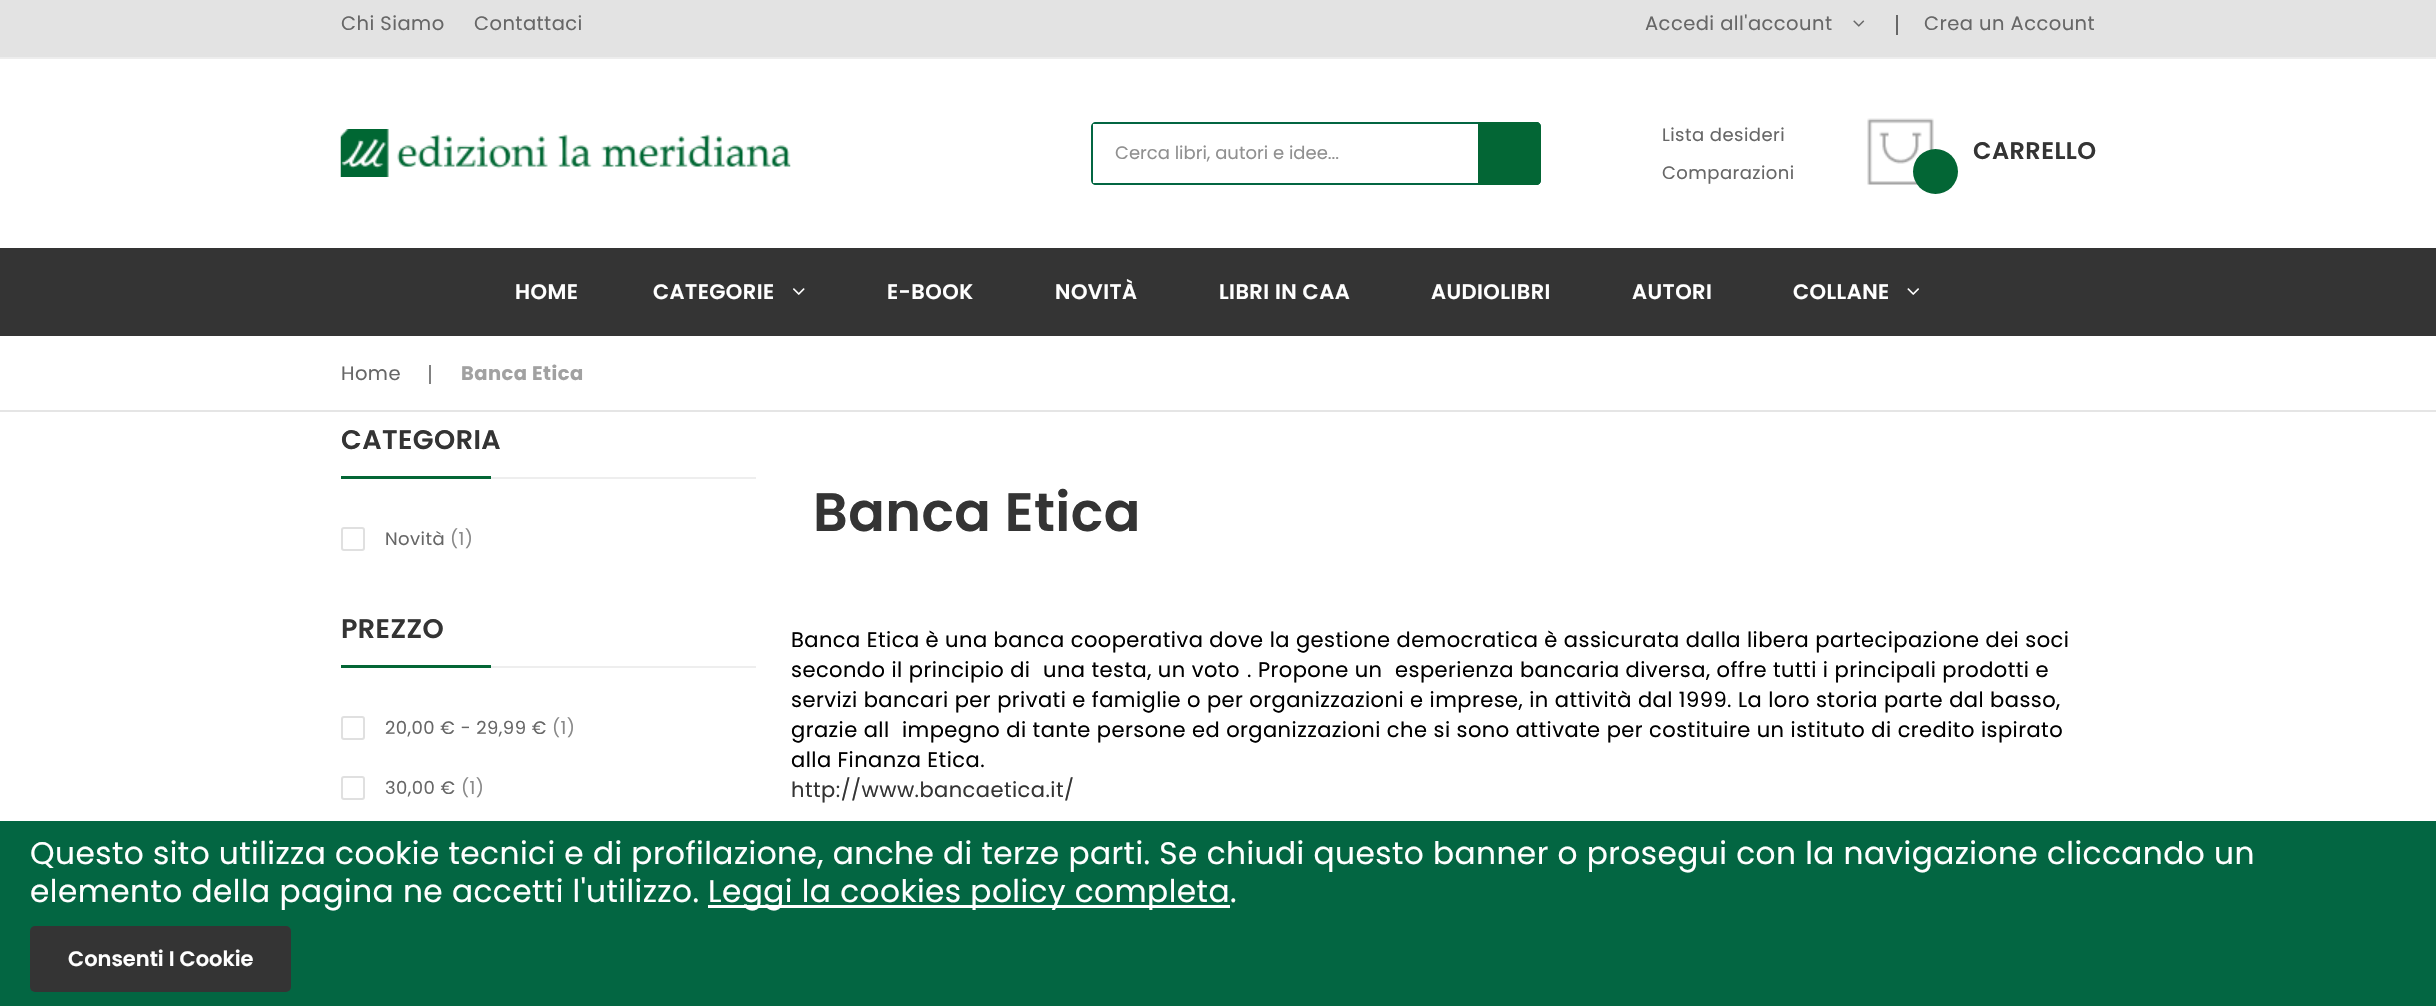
void draw(SkCanvas* canvas) {
  SkPaint paint;
  paint.setAntiAlias(true);
  auto face = [&](const char* family, int weight, float size, bool italic = false) {
    SkFontStyle style(weight, SkFontStyle::kNormal_Width,
      italic ? SkFontStyle::kItalic_Slant : SkFontStyle::kUpright_Slant);
    SkFont result(fontMgr->matchFamilyStyle(family, style), size);
    result.setSubpixel(true);
    return result;
  };
  auto writeSpaced = [&](const char* s, float x, float y, const SkFont& font, const SkPaint& ink, float letter, float word) {
    std::vector<SkGlyphID> glyphs(font.countText(s, strlen(s), SkTextEncoding::kUTF8));
    std::vector<float> xs(glyphs.size());
    font.textToGlyphs(s, strlen(s), SkTextEncoding::kUTF8, glyphs);
    font.getXPos(glyphs, xs, x);
    float extra = 0;
    for (size_t i = 0; i < glyphs.size(); i++) {
      xs[i] += extra;
      extra += letter + word * (glyphs[i] == font.unicharToGlyph(' '));
    }
    canvas->drawTextBlob(SkTextBlob::MakeFromPosHGlyphs(glyphs, xs, y, font), 0, 0, ink);
  };
  auto paste = [&](const char* path, float x, float y, float w, float h) {
    auto image = SkImages::DeferredFromEncodedData(SkData::MakeFromFileName(path));
    canvas->drawImageRect(image, SkRect::MakeXYWH(x, y, w, h), SkSamplingOptions());
  };
  auto shape = [&](const char* data, bool evenOdd = false) {
    SkPath result = *SkParsePath::FromSVGString(data);
    if (evenOdd) result.setFillType(SkPathFillType::kEvenOdd);
    return result;
  };
  canvas->clear(0xffffffff);
  paint.setColor(0xffe3e3e3);
  canvas->drawRect(SkRect::MakeXYWH(0, 0, 2436, 57), paint);
  paint.setColor(0xffededed);
  canvas->drawRect(SkRect::MakeXYWH(0, 57, 2436, 2), paint);
  paste("img/1.png", 1853, 20, 12, 7);
  paint.setColor(0xff676767);
  canvas->drawRect(SkRect::MakeXYWH(1896, 15, 2, 20), paint);
  paint.setColor(0xff036642);
  canvas->drawPath(shape("M1096 122C1093 122 1091 124 1091 127V180C1091 183 1093 185 1096 185H1536C1539 185 1541 183 1541 180V127C1541 124 1539 122 1536 122ZM1093 124V183H1539V124Z", true), paint);
  paint.setColor(0xff036635);
  canvas->drawPath(shape("M1478 122H1536C1539 122 1541 124 1541 127V180C1541 183 1539 185 1536 185H1478Z"), paint);
  paste("img/2.png", 340, 129, 451, 48);
  paste("img/3.png", 1867, 118, 67, 67);
  canvas->drawCircle(1935.5f, 171.5f, 22.5f, paint);
  paint.setColor(0xff343434);
  canvas->drawRect(SkRect::MakeXYWH(0, 248, 2436, 88), paint);
  paste("img/4.png", 793, 288, 12, 7);
  paste("img/5.png", 1907, 288, 12, 7);
  {
    const struct { float x, y, w, h; SkColor color; } items[] = {
      {0, 410, 2436, 2, 0xffe5e5e5},
      {429, 365, 2, 19, 0xff818181},
      {491, 477, 265, 2, 0xffeeeeee},
      {341, 476, 150, 3, 0xff036635},
    };
    for (auto [x, y, w, h, color] : items) {
      paint.setColor(color);
      canvas->drawRect(SkRect::MakeXYWH(x, y, w, h), paint);
    }
  }
  paint.setStroke(true);
  paint.setStrokeWidth(2);
  paint.setColor(0xffe0e0e0);
  canvas->drawRoundRect(SkRect::MakeXYWH(342, 528, 22, 22), 2, 2, paint);
  paint.setStroke(false);
  paint.setColor(0xffeeeeee);
  canvas->drawRect(SkRect::MakeXYWH(491, 666, 265, 2), paint);
  paint.setColor(0xff036635);
  canvas->drawRect(SkRect::MakeXYWH(341, 665, 150, 3), paint);
  paint.setStroke(true);
  paint.setColor(0xffe0e0e0);
  canvas->drawRoundRect(SkRect::MakeXYWH(342, 717, 22, 22), 2, 2, paint);
  canvas->drawRoundRect(SkRect::MakeXYWH(342, 777, 22, 22), 2, 2, paint);
  paint.setStroke(false);
  paint.setColor(0xff036642);
  canvas->drawRect(SkRect::MakeXYWH(0, 821, 2436, 185), paint);
  paint.setColor(0xffffffff);
  canvas->drawRect(SkRect::MakeXYWH(708, 905, 522, 3), paint);
  paint.setColor(0xff343434);
  canvas->drawRoundRect(SkRect::MakeXYWH(30, 926, 261, 66), 5, 5, paint);
  auto f0 = face("Poppins", 400, 19.5f);
  paint.setColor(0xff676767);
  {
    const struct { const char* s; float x, y; } items[] = {
      {"Chi Siamo", 341, 30},
      {"Contattaci", 474, 30},
      {"Accedi all'account", 1645, 30},
      {"Crea un Account", 1924, 30},
    };
    for (auto [s, x, y] : items) {
      writeSpaced(s, x, y, f0, paint, 0.45f, 0);
    }
  }
  auto f1 = face("Poppins", 400, 18);
  paint.setColor(0xff909090);
  canvas->drawString("Cerca libri, autori e idee...", 1115, 159, f1, paint);
  paint.setColor(0xff676767);
  writeSpaced("Lista desideri", 1662, 141, f1, paint, 0.45f, 0);
  writeSpaced("Comparazioni", 1662, 179, f1, paint, 0.45f, 0);
  auto f2 = face("Poppins", 600, 24);
  paint.setColor(0xff343434);
  writeSpaced("CARRELLO", 1973, 159, f2, paint, 0.45f, 0);
  auto f3 = face("Poppins", 600, 21);
  paint.setColor(0xffffffff);
  {
    const struct { const char* s; float x, y; } items[] = {
      {"HOME", 515, 299},
      {"CATEGORIE", 653, 299},
      {"E-BOOK", 887, 299},
      {"NOVITÀ", 1055, 299},
      {"LIBRI IN CAA", 1219, 299},
      {"AUDIOLIBRI", 1431, 299},
      {"AUTORI", 1632, 299},
      {"COLLANE", 1793, 299},
    };
    for (auto [s, x, y] : items) {
      writeSpaced(s, x, y, f3, paint, 0.45f, 0);
    }
  }
  paint.setColor(0xff676767);
  writeSpaced("Home", 341, 380, f0, paint, 0.45f, 0);
  auto f4 = face("Poppins", 700, 19.5f);
  paint.setColor(0xffa1a1a1);
  writeSpaced("Banca Etica", 461, 380, f4, paint, 0.45f, 0);
  auto f5 = face("Poppins", 600, 27);
  paint.setColor(0xff343434);
  writeSpaced("CATEGORIA", 341, 449, f5, paint, 0.45f, 0);
  paint.setColor(0xff676767);
  writeSpaced("Novità", 385, 545, f1, paint, 0.45f, 0);
  paint.setColor(0xff898989);
  writeSpaced("(1)", 450, 545, f1, paint, 0.45f, 0);
  paint.setColor(0xff343434);
  writeSpaced("PREZZO", 341, 638, f5, paint, 0.45f, 0);
  paint.setColor(0xff676767);
  writeSpaced("20,00 € - 29,99 €", 385, 734, f1, paint, 0.45f, 0);
  paint.setColor(0xff898989);
  writeSpaced("(1)", 552, 734, f1, paint, 0.45f, 0);
  paint.setColor(0xff676767);
  writeSpaced("30,00 €", 385, 794, f1, paint, 0.45f, 0);
  paint.setColor(0xff898989);
  writeSpaced("(1)", 461, 794, f1, paint, 0.45f, 0);
  auto f6 = face("Poppins", 600, 54);
  paint.setColor(0xff343434);
  writeSpaced("Banca Etica", 813, 531, f6, paint, 0.45f, 0);
  auto f7 = face("Poppins", 400, 21);
  paint.setColor(0xff000000);
  {
    const struct { const char* s; float x, y; } items[] = {
      {"Banca Etica è una banca cooperativa dove la gestione democratica è assicurata dalla libera partecipazione dei soci", 791, 647},
      {"secondo il principio di", 791, 677},
      {"una testa, un voto", 1043, 677},
      {". Propone un", 1247, 677},
      {"esperienza bancaria diversa, offre tutti i principali prodotti e", 1395, 677},
      {"servizi bancari per privati e famiglie o per organizzazioni e imprese, in attività dal 1999. La loro storia parte dal basso,", 791, 707},
      {"grazie all", 791, 737},
      {"impegno di tante persone ed organizzazioni che si sono attivate per costituire un istituto di credito ispirato", 902, 737},
      {"alla Finanza Etica.", 791, 767},
    };
    for (auto [s, x, y] : items) {
      writeSpaced(s, x, y, f7, paint, 0.45f, 0);
    }
  }
  paint.setColor(0xff343434);
  writeSpaced("http://www.bancaetica.it/", 791, 797, f7, paint, 0.45f, 0);
  auto f8 = face("Poppins", 400, 31.2f);
  paint.setColor(0xffffffff);
  {
    const struct { const char* s; float x, y; } items[] = {
      {"Questo sito utilizza cookie tecnici e di profilazione, anche di terze parti. Se chiudi questo banner o prosegui con la navigazione cliccando un", 30, 864},
      {"elemento della pagina ne accetti l'utilizzo.", 30, 902},
      {"Leggi la cookies policy completa.", 708, 902},
    };
    for (auto [s, x, y] : items) {
      writeSpaced(s, x, y, f8, paint, 0.45f, 0);
    }
  }
  canvas->drawString("Consenti I Cookie", 68, 966, f3, paint);
}
